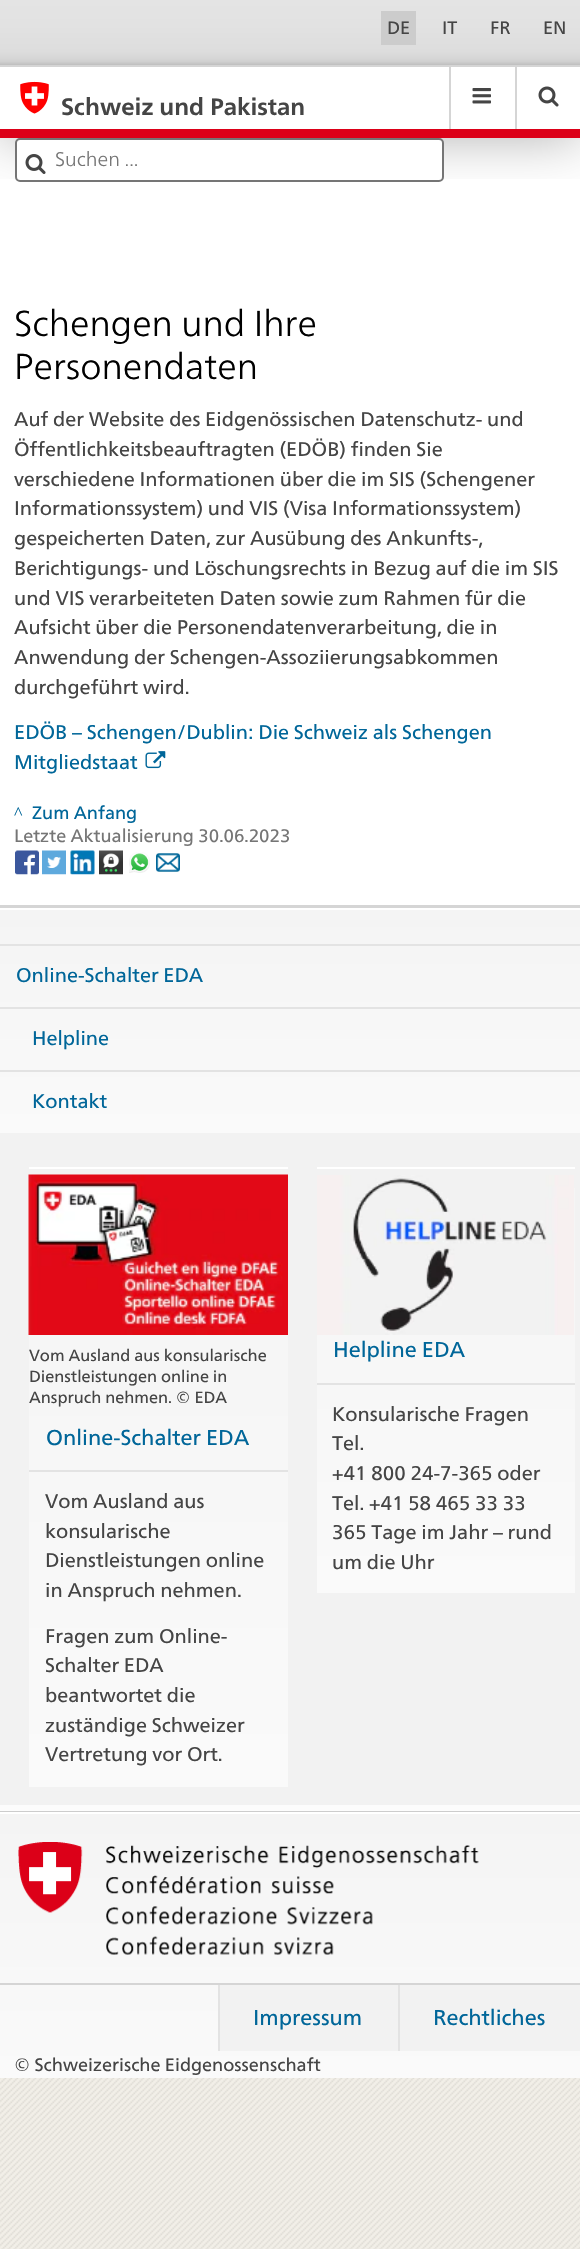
void draw(SkCanvas* canvas) {
  SkPaint paint;
  paint.setAntiAlias(true);
  auto face = [&](const char* family, int weight, float size, bool italic = false) {
    SkFontStyle style(weight, SkFontStyle::kNormal_Width,
      italic ? SkFontStyle::kItalic_Slant : SkFontStyle::kUpright_Slant);
    SkFont result(fontMgr->matchFamilyStyle(family, style), size);
    result.setSubpixel(true);
    return result;
  };
  auto paste = [&](const char* path, float x, float y, float w, float h) {
    auto image = SkImages::DeferredFromEncodedData(SkData::MakeFromFileName(path));
    canvas->drawImageRect(image, SkRect::MakeXYWH(x, y, w, h), SkSamplingOptions());
  };
  canvas->clear(0xffffffff);
  paste("img/1.png", 0, 2078, 580, 171);
  canvas->save();
  canvas->clipRect(SkRect::MakeXYWH(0, 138, 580, 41));
  paint.setColor(0x4d000000);
  paint.setMaskFilter(SkMaskFilter::MakeBlur(kNormal_SkBlurStyle, 27));
  canvas->drawRect(SkRect::MakeXYWH(0, 66, 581, 72), paint);
  paint.setMaskFilter(nullptr);
  canvas->restore();
  {
    const SkColor colors[] = {0xffe4e4e4, 0xffe2e2e2, 0xffdddddd, 0xffd5d5d5, 0xffcfcfcf, 0xffbebebe};
    const float stops[] = {0, 0.39f, 0.79f, 0.91f, 0.95f, 1};
    const SkPoint ends[] = {{290, 0}, {290, 65}};
    paint.setShader(SkGradientShader::MakeLinear(ends, colors, stops, 6, SkTileMode::kClamp));
    paint.setAlpha(255);
  }
  canvas->drawRect(SkRect::MakeXYWH(0, 0, 580, 65), paint);
  paint.setShader(nullptr);
  {
    const struct { float x, y, w, h; SkColor color; } items[] = {
      {449, 66, 2, 63, 0xffd5d5d5},
      {515, 66, 2, 63, 0xffd5d5d5},
      {0, 65, 580, 2, 0xffd5d5d5},
      {381, 11, 35, 34, 0xffcccccc},
      {0, 129, 580, 9, 0xffdc0018},
    };
    for (auto [x, y, w, h, color] : items) {
      paint.setColor(color);
      canvas->drawRect(SkRect::MakeXYWH(x, y, w, h), paint);
    }
  }
  paste("img/2.png", 20, 81, 29, 33);
  paste("img/3.png", 472, 88, 19, 16);
  paste("img/4.png", 538, 86, 21, 21);
  paint.setColor(0xffffffff);
  canvas->drawRoundRect(SkRect::MakeXYWH(16, 139, 427, 42), 4, 4, paint);
  paint.setStroke(true);
  paint.setStrokeWidth(2);
  paint.setColor(0xff757575);
  canvas->drawRoundRect(SkRect::MakeXYWH(16, 139, 427, 42), 4, 4, paint);
  paste("img/5.png", 25, 154, 21, 20);
  paste("img/6.png", 145, 751, 21, 18);
  paste("img/7.png", 15, 850, 24, 25);
  paste("img/8.png", 42, 850, 24, 25);
  paste("img/9.png", 70, 850, 25, 25);
  paste("img/10.png", 99, 850, 24, 25);
  paste("img/11.png", 129, 852, 21, 21);
  paste("img/12.png", 156, 853, 24, 19);
  paint.setStroke(false);
  paint.setColor(0xfff2f2f2);
  canvas->drawRect(SkRect::MakeXYWH(0, 1133, 580, 672), paint);
  paint.setColor(0xffd5d5d5);
  canvas->drawRect(SkRect::MakeXYWH(0, 905, 580, 3), paint);
  {
    const SkColor colors[] = {0xfff4f4f4, 0xfffafafa};
    const float stops[] = {0, 1};
    const SkPoint ends[] = {{290, 908}, {290, 1133}};
    paint.setShader(SkGradientShader::MakeLinear(ends, colors, stops, 2, SkTileMode::kClamp));
    paint.setAlpha(255);
  }
  canvas->drawRect(SkRect::MakeXYWH(0, 910, 580, 223), paint);
  paint.setShader(nullptr);
  {
    const struct { float x, y, w, h; SkColor color; } items[] = {
      {0, 944, 580, 2, 0xffe3e3e3},
      {0, 1007, 580, 2, 0xffe3e3e3},
      {0, 1070, 580, 2, 0xffe3e3e3},
    };
    for (auto [x, y, w, h, color] : items) {
      paint.setColor(color);
      canvas->drawRect(SkRect::MakeXYWH(x, y, w, h), paint);
    }
  }
  {
    const SkColor colors[] = {0xfff4f4f4, 0xfffafafa};
    const float stops[] = {0, 1};
    const SkPoint ends[] = {{158, 1151}, {158, 1787}};
    paint.setShader(SkGradientShader::MakeLinear(ends, colors, stops, 2, SkTileMode::kClamp));
    paint.setAlpha(255);
  }
  canvas->drawRect(SkRect::MakeXYWH(29, 1204, 259, 583), paint);
  paste("img/13.png", 28, 1174, 260, 161);
  paint.setShader(nullptr);
  paint.setColor(0xffffffff);
  canvas->drawRect(SkRect::MakeXYWH(29, 1167, 259, 2), paint);
  paint.setColor(0xffe3e3e3);
  canvas->drawRect(SkRect::MakeXYWH(29, 1470, 259, 2), paint);
  {
    const SkColor colors[] = {0xfff4f4f4, 0xfffafafa};
    const float stops[] = {0, 1};
    const SkPoint ends[] = {{446, 1151}, {446, 1593}};
    paint.setShader(SkGradientShader::MakeLinear(ends, colors, stops, 2, SkTileMode::kClamp));
    paint.setAlpha(255);
  }
  canvas->drawRect(SkRect::MakeXYWH(317, 1188, 258, 405), paint);
  paste("img/14.png", 317, 1175, 257, 160);
  paint.setShader(nullptr);
  {
    const struct { float x, y, w, h; SkColor color; } items[] = {
      {317, 1167, 258, 2, 0xffffffff},
      {317, 1383, 258, 2, 0xffe3e3e3},
      {0, 1805, 580, 6, 0xfffcfcfc},
      {0, 1811, 580, 1, 0xffcccccc},
    };
    for (auto [x, y, w, h, color] : items) {
      paint.setColor(color);
      canvas->drawRect(SkRect::MakeXYWH(x, y, w, h), paint);
    }
  }
  {
    const SkColor colors[] = {0xfff4f4f4, 0xfffafafa};
    const float stops[] = {0, 1};
    const SkPoint ends[] = {{290, 1812}, {290, 2078}};
    paint.setShader(SkGradientShader::MakeLinear(ends, colors, stops, 2, SkTileMode::kClamp));
    paint.setAlpha(255);
  }
  canvas->drawRect(SkRect::MakeXYWH(0, 1814, 580, 264), paint);
  paint.setShader(nullptr);
  paint.setColor(0xffd5d5d5);
  canvas->drawRect(SkRect::MakeXYWH(0, 1983, 580, 2), paint);
  paste("img/15.png", 18, 1842, 461, 113);
  {
    const struct { float x, y, w, h; SkColor color; } items[] = {
      {220, 1985, 178, 66, 0xfff2f2f2},
      {218, 1985, 2, 66, 0xffe3e3e3},
      {400, 1985, 180, 66, 0xfff2f2f2},
      {398, 1985, 2, 66, 0xffe3e3e3},
    };
    for (auto [x, y, w, h, color] : items) {
      paint.setColor(color);
      canvas->drawRect(SkRect::MakeXYWH(x, y, w, h), paint);
    }
  }
  auto f0 = face("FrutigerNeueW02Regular", 400, 18);
  paint.setColor(0xff454545);
  {
    const struct { const char* s; float x, y; } items[] = {
      {"DE", 387, 34},
      {"IT", 442, 34},
      {"FR", 490, 34},
      {"EN", 543, 34},
    };
    for (auto [s, x, y] : items) {
      canvas->drawString(s, x, y, f0, paint);
    }
  }
  auto f1 = face("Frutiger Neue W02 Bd", 700, 23.75f);
  canvas->drawString("Schweiz und Pakistan", 61, 115, f1, paint);
  auto f2 = face("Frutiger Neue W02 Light", 300, 19.8f);
  paint.setColor(0xff757575);
  canvas->drawString("Suchen ...", 55, 166, f2, paint);
  auto f3 = face("Frutiger Neue W02 Light", 300, 36);
  paint.setColor(0xff000000);
  canvas->drawString("Schengen und Ihre", 14, 336, f3, paint);
  canvas->drawString("Personendaten", 14, 379, f3, paint);
  auto f4 = face("FrutigerNeueW02Regular", 400, 19.8f);
  paint.setColor(0xff454545);
  {
    const struct { const char* s; float x, y; } items[] = {
      {"Auf der Website des Eidgenössischen Datenschutz- und", 14, 426},
      {"Öffentlichkeitsbeauftragten (EDÖB) finden Sie", 14, 456},
      {"verschiedene Informationen über die im SIS (Schengener", 14, 486},
      {"Informationssystem) und VIS (Visa Informationssystem)", 14, 515},
      {"gespeicherten Daten, zur Ausübung des Ankunfts-,", 14, 545},
      {"Berichtigungs- und Löschungsrechts in Bezug auf die im SIS", 14, 575},
      {"und VIS verarbeiteten Daten sowie zum Rahmen für die", 14, 605},
      {"Aufsicht über die Personendatenverarbeitung, die in", 14, 634},
      {"Anwendung der Schengen-Assoziierungsabkommen", 14, 664},
      {"durchgeführt wird.", 14, 694},
    };
    for (auto [s, x, y] : items) {
      canvas->drawString(s, x, y, f4, paint);
    }
  }
  paint.setColor(0xff006699);
  canvas->drawString("EDÖB – Schengen/Dublin: Die Schweiz als Schengen", 14, 739, f4, paint);
  canvas->drawString("Mitgliedstaat", 14, 769, f4, paint);
  auto f5 = face("Liberation Serif", 400, 18);
  canvas->drawString("^", 14, 819, f5, paint);
  canvas->drawString("Zum Anfang", 32, 819, f0, paint);
  paint.setColor(0xff757575);
  canvas->drawString("Letzte Aktualisierung 30.06.2023", 14, 842, f0, paint);
  paint.setColor(0xff006699);
  {
    const struct { const char* s; float x, y; } items[] = {
      {"Online-Schalter EDA", 16, 982},
      {"Helpline", 32, 1045},
      {"Kontakt", 32, 1108},
    };
    for (auto [s, x, y] : items) {
      canvas->drawString(s, x, y, f4, paint);
    }
  }
  auto f6 = face("FrutigerNeueW02Regular", 400, 16.25f);
  paint.setColor(0xff454545);
  {
    const struct { const char* s; float x, y; } items[] = {
      {"Vom Ausland aus konsularische", 29, 1361},
      {"Dienstleistungen online in", 29, 1382},
      {"Anspruch nehmen. © EDA", 29, 1403},
    };
    for (auto [s, x, y] : items) {
      canvas->drawString(s, x, y, f6, paint);
    }
  }
  auto f7 = face("FrutigerNeueW02Regular", 400, 21.5f);
  paint.setColor(0xff006699);
  canvas->drawString("Online-Schalter EDA", 46, 1445, f7, paint);
  paint.setColor(0xff454545);
  {
    const struct { const char* s; float x, y; } items[] = {
      {"Vom Ausland aus", 45, 1508},
      {"konsularische", 45, 1538},
      {"Dienstleistungen online", 45, 1567},
      {"in Anspruch nehmen.", 45, 1597},
      {"Fragen zum Online-", 45, 1643},
      {"Schalter EDA", 45, 1672},
      {"beantwortet die", 45, 1702},
      {"zuständige Schweizer", 45, 1732},
      {"Vertretung vor Ort.", 45, 1761},
    };
    for (auto [s, x, y] : items) {
      canvas->drawString(s, x, y, f4, paint);
    }
  }
  paint.setColor(0xff006699);
  canvas->drawString("Helpline EDA", 333, 1357, f7, paint);
  paint.setColor(0xff454545);
  {
    const struct { const char* s; float x, y; } items[] = {
      {"Konsularische Fragen", 332, 1421},
      {"Tel.", 332, 1450},
      {"+41 800 24-7-365 oder", 332, 1480},
      {"Tel. +41 58 465 33 33", 332, 1510},
      {"365 Tage im Jahr – rund", 332, 1539},
      {"um die Uhr", 332, 1569},
    };
    for (auto [s, x, y] : items) {
      canvas->drawString(s, x, y, f4, paint);
    }
  }
  paint.setColor(0xff006699);
  canvas->drawString("Impressum", 253, 2025, f7, paint);
  canvas->drawString("Rechtliches", 433, 2025, f7, paint);
  paint.setColor(0xff454545);
  canvas->drawString("© Schweizerische Eidgenossenschaft", 14, 2071, f0, paint);
}
